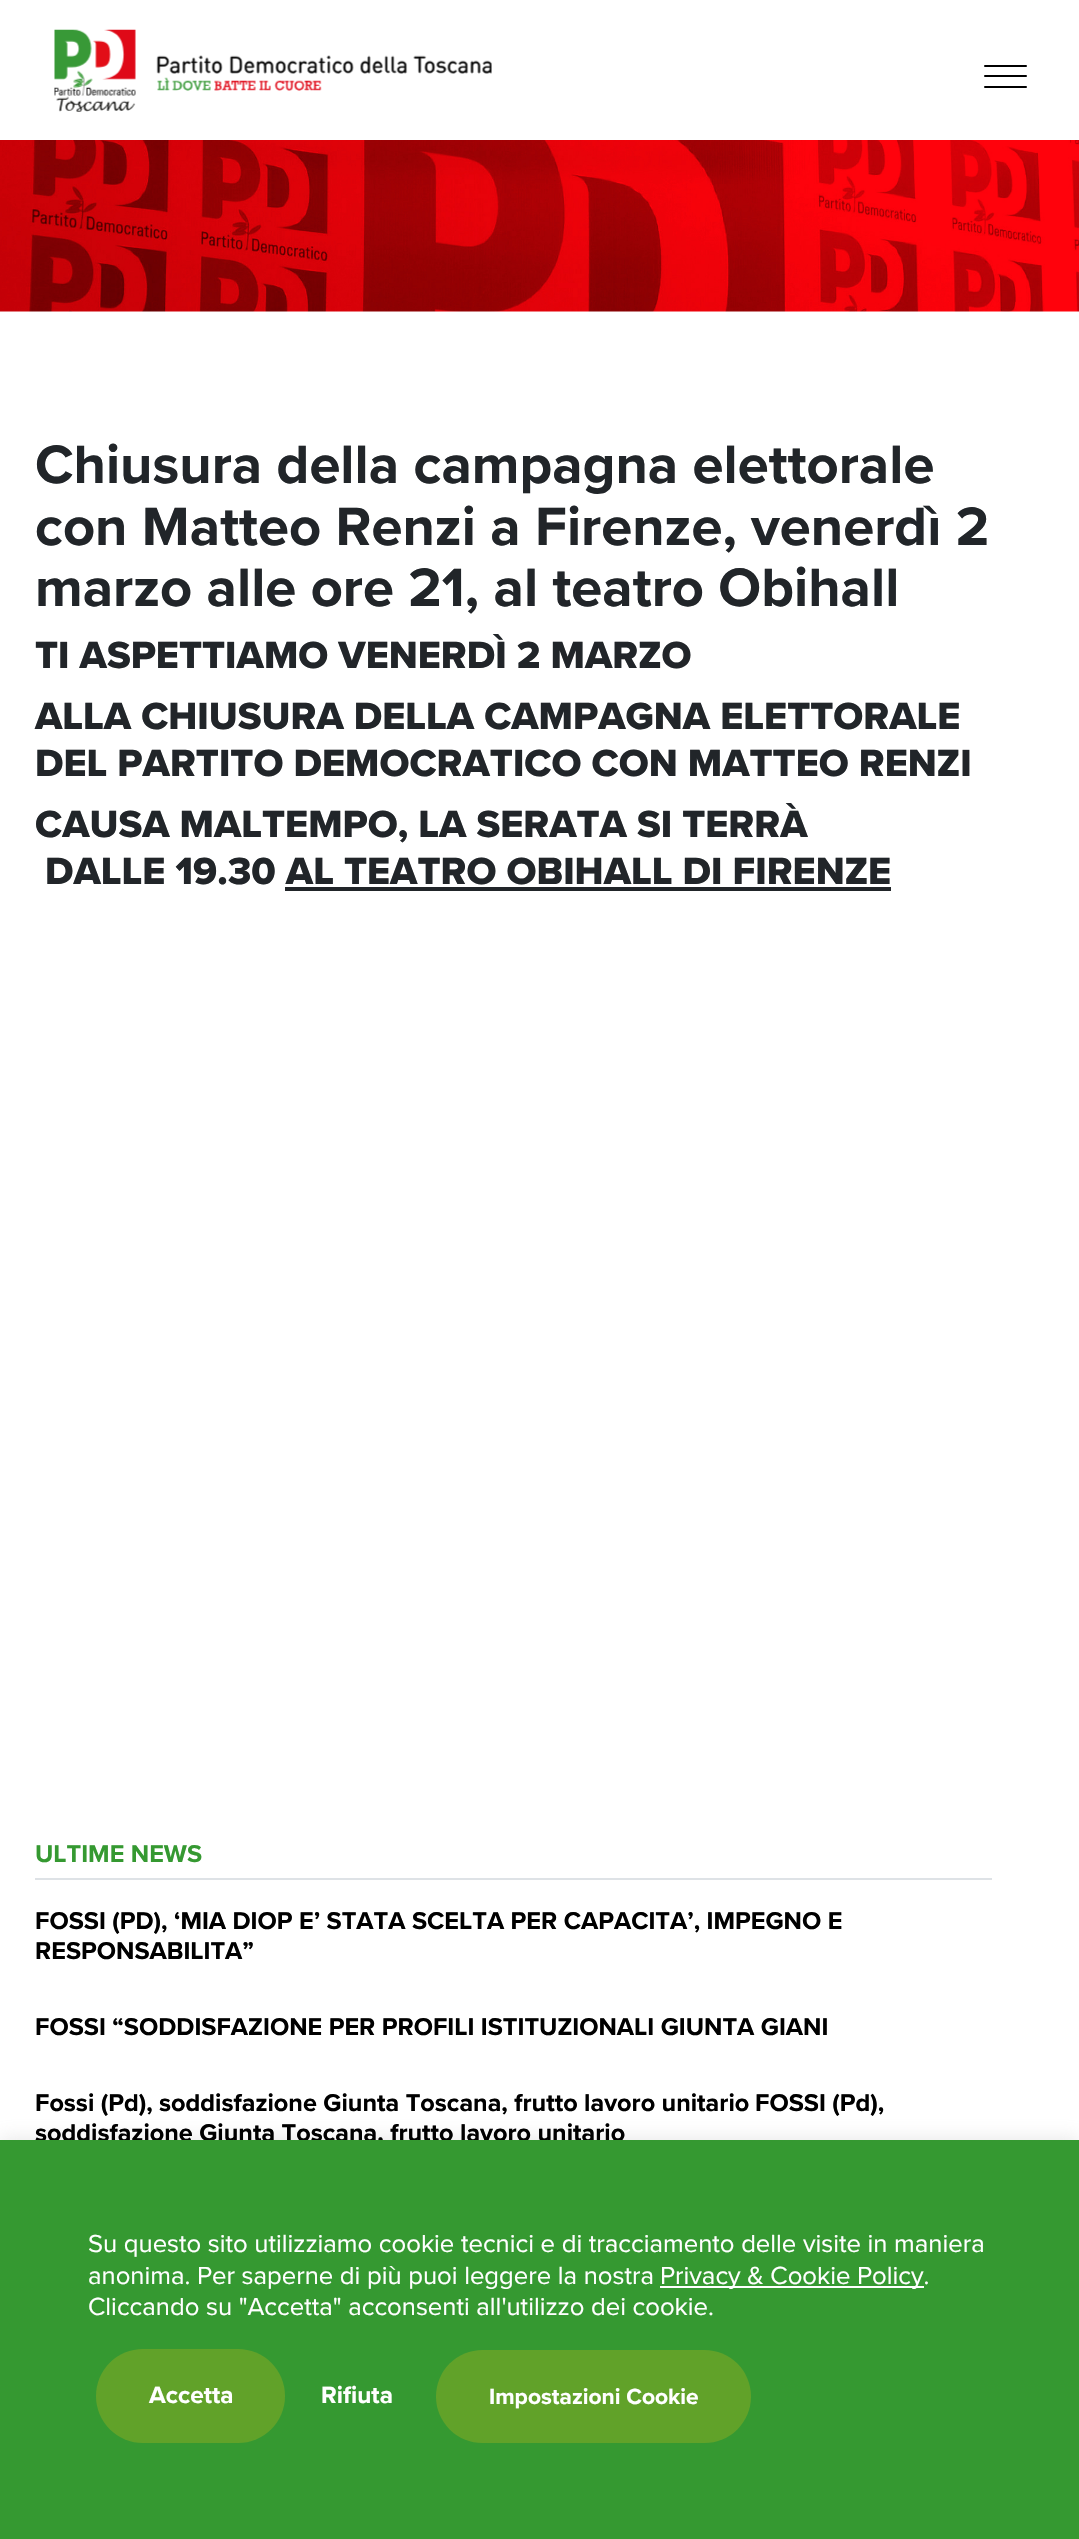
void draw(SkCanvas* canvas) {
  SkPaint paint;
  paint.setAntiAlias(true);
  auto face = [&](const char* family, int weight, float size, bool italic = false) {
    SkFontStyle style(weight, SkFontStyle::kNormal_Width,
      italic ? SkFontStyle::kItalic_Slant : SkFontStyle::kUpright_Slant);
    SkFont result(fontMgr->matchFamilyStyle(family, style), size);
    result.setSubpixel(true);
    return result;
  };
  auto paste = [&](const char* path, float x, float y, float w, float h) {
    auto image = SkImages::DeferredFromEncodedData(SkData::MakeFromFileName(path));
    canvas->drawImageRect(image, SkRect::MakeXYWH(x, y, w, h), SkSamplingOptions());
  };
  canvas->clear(0xffffffff);
  paste("img/1.png", 54, 29, 438, 83);
  paint.setColor(0xff000000);
  canvas->drawRoundRect(SkRect::MakeXYWH(984, 65, 43, 2), 1, 1, paint);
  canvas->drawRoundRect(SkRect::MakeXYWH(984, 75, 43, 2), 1, 1, paint);
  canvas->drawRoundRect(SkRect::MakeXYWH(984, 86, 43, 2), 1, 1, paint);
  paste("img/2.png", 0, 140, 1079, 172);
  paint.setColor(0xff212529);
  canvas->drawRect(SkRect::MakeXYWH(285, 887, 606, 4), paint);
  paint.setColor(0xffdee2e6);
  canvas->drawRect(SkRect::MakeXYWH(35, 1878, 957, 2), paint);
  paint.setColor(0x4dacabab);
  paint.setMaskFilter(SkMaskFilter::MakeBlur(kNormal_SkBlurStyle, 9));
  canvas->drawRect(SkRect::MakeXYWH(0, 2139, 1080, 399), paint);
  paint.setMaskFilter(nullptr);
  auto f0 = face("Proxima Nova", 700, 56);
  paint.setColor(0xff212529);
  {
    const struct { const char* s; float x, y; } items[] = {
      {"Chiusura della campagna elettorale", 35, 483},
      {"con Matteo Renzi a Firenze, venerdì 2", 35, 545},
      {"marzo alle ore 21, al teatro Obihall", 35, 606},
    };
    for (auto [s, x, y] : items) {
      canvas->drawString(s, x, y, f0, paint);
    }
  }
  auto f1 = face("Proxima Nova", 800, 39.2f);
  {
    const struct { const char* s; float x, y; } items[] = {
      {"TI ASPETTIAMO VENERDÌ 2 MARZO", 35, 668},
      {"ALLA CHIUSURA DELLA CAMPAGNA ELETTORALE", 35, 729},
      {"DEL PARTITO DEMOCRATICO CON MATTEO RENZI", 35, 776},
      {"CAUSA MALTEMPO, LA SERATA SI TERRÀ", 35, 837},
      {"DALLE 19.30 AL TEATRO OBIHALL DI FIRENZE", 45, 884},
    };
    for (auto [s, x, y] : items) {
      canvas->drawString(s, x, y, f1, paint);
    }
  }
  auto f2 = face("Proxima Nova", 700, 25.2f);
  paint.setColor(0xff359931);
  canvas->drawString("ULTIME NEWS", 35, 1862, f2, paint);
  paint.setColor(0xff000000);
  {
    const struct { const char* s; float x, y; } items[] = {
      {"FOSSI (PD), ‘MIA DIOP E’ STATA SCELTA PER CAPACITA’, IMPEGNO E", 35, 1929},
      {"RESPONSABILITA”", 35, 1959},
      {"FOSSI “SODDISFAZIONE PER PROFILI ISTITUZIONALI GIUNTA GIANI", 35, 2035},
      {"Fossi (Pd), soddisfazione Giunta Toscana, frutto lavoro unitario", 35, 2111},
      {"FOSSI (Pd),", 755, 2111},
      {"soddisfazione Giunta Toscana, frutto lavoro unitario", 35, 2141},
    };
    for (auto [s, x, y] : items) {
      canvas->drawString(s, x, y, f2, paint);
    }
  }
  paint.setColor(0xff359931);
  canvas->drawRect(SkRect::MakeXYWH(0, 2140, 1079, 399), paint);
  auto f3 = face("Proxima Nova", 400, 25.65f);
  paint.setColor(0xffffffff);
  canvas->drawString("Su questo sito utilizziamo cookie tecnici e di tracciamento delle visite in maniera", 88, 2252, f3, paint);
  canvas->drawString("anonima. Per saperne di più puoi leggere la nostra", 88, 2284, f3, paint);
  canvas->drawRect(SkRect::MakeXYWH(660, 2286, 264, 2), paint);
  canvas->drawString("Privacy & Cookie Policy.", 660, 2284, f3, paint);
  canvas->drawString("Cliccando su \"Accetta\" acconsenti all'utilizzo dei cookie.", 88, 2315, f3, paint);
  paint.setColor(0xff61a229);
  canvas->drawRoundRect(SkRect::MakeXYWH(96, 2349, 189, 94), 47, 47, paint);
  auto f4 = face("Proxima Nova", 700, 24.5f);
  paint.setColor(0xffffffff);
  canvas->drawString("Accetta", 149, 2403, f4, paint);
  canvas->drawString("Rifiuta", 321, 2403, f4, paint);
  paint.setColor(0xff61a229);
  canvas->drawRoundRect(SkRect::MakeXYWH(436, 2350, 315, 93), 46.5f, 46.5f, paint);
  auto f5 = face("Proxima Nova", 700, 22.75f);
  paint.setColor(0xffffffff);
  canvas->drawString("Impostazioni Cookie", 489, 2404, f5, paint);
}
